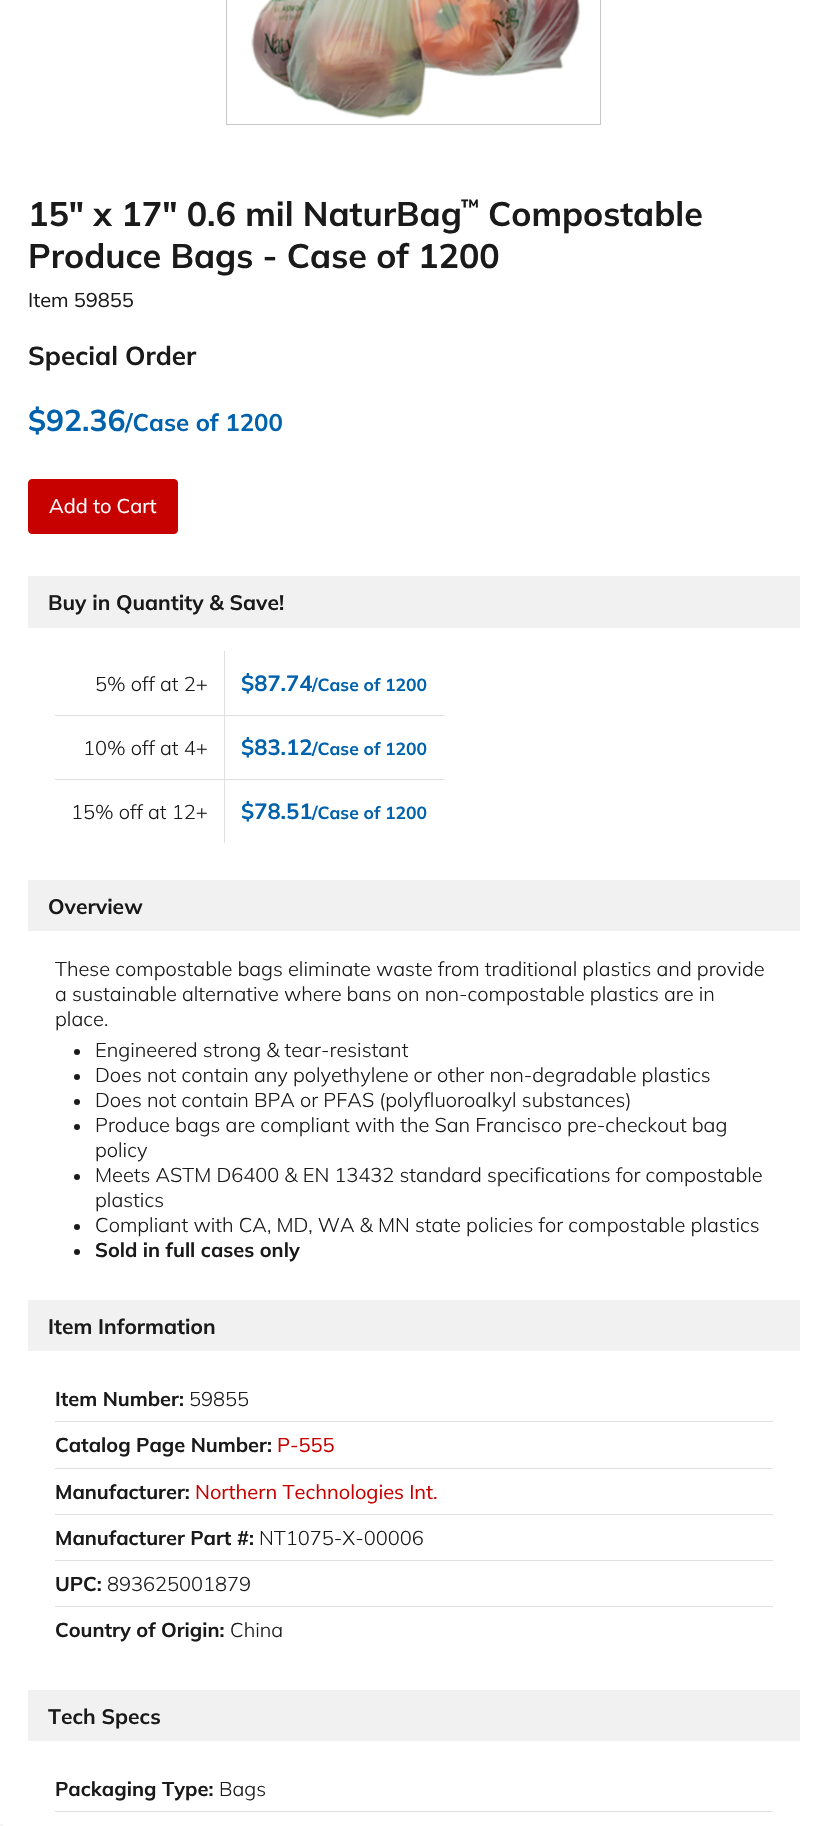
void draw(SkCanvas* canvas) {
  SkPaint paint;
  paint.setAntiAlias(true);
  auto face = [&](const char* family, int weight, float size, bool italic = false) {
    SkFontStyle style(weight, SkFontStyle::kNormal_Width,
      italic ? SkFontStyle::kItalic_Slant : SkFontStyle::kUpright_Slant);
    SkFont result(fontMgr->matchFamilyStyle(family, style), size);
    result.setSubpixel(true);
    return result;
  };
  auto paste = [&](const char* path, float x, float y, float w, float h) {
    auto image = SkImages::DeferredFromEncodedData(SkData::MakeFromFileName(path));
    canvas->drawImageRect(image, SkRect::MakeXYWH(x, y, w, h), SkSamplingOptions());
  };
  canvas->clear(0xffffffff);
  paint.setStroke(true);
  paint.setStrokeWidth(1);
  paint.setColor(0xffc8c8c8);
  canvas->drawRect(SkRect::MakeXYWH(226.5f, -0.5f, 374, 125), paint);
  paste("img/1.png", 251, 0, 330, 119);
  paint.setStroke(false);
  paint.setColor(0xffc70000);
  canvas->drawRoundRect(SkRect::MakeXYWH(28.5f, 479.5f, 149, 54), 3.5f, 3.5f, paint);
  paint.setStroke(true);
  canvas->drawRoundRect(SkRect::MakeXYWH(28.5f, 479.5f, 149, 54), 3.5f, 3.5f, paint);
  paint.setStroke(false);
  {
    const struct { float x, y, w, h; SkColor color; } items[] = {
      {28, 576, 772, 52, 0xfff1f1f1},
      {224, 779, 1, 64, 0xffe0e0e0},
      {224, 779, 221, 1, 0xffe0e0e0},
      {224, 715, 1, 65, 0xffe0e0e0},
      {224, 715, 221, 1, 0xffe0e0e0},
      {224, 651, 1, 65, 0xffe0e0e0},
      {55, 715, 170, 1, 0xffe0e0e0},
      {55, 779, 170, 1, 0xffe0e0e0},
      {28, 880, 772, 51, 0xfff1f1f1},
    };
    for (auto [x, y, w, h, color] : items) {
      paint.setColor(color);
      canvas->drawRect(SkRect::MakeXYWH(x, y, w, h), paint);
    }
  }
  paint.setColor(0xff1a1a1a);
  canvas->drawCircle(77, 1052, 3, paint);
  canvas->drawCircle(77, 1077, 3, paint);
  canvas->drawCircle(77, 1102, 3, paint);
  canvas->drawCircle(77, 1127, 3, paint);
  canvas->drawCircle(77, 1177, 3, paint);
  canvas->drawCircle(77, 1227, 3, paint);
  canvas->drawCircle(77, 1252, 3, paint);
  {
    const struct { float x, y, w, h; SkColor color; } items[] = {
      {28, 1300, 772, 51, 0xfff1f1f1},
      {55, 1421, 718, 1, 0xffe0e0e0},
      {55, 1468, 718, 1, 0xffe0e0e0},
      {55, 1514, 718, 1, 0xffe0e0e0},
      {55, 1560, 718, 1, 0xffe0e0e0},
      {55, 1606, 718, 1, 0xffe0e0e0},
      {28, 1690, 772, 51, 0xfff1f1f1},
      {55, 1811, 718, 1, 0xffe0e0e0},
      {0, 1824, 3, 2, 0xfff5f5f5},
    };
    for (auto [x, y, w, h, color] : items) {
      paint.setColor(color);
      canvas->drawRect(SkRect::MakeXYWH(x, y, w, h), paint);
    }
  }
  auto f0 = face("Mulish", 700, 34);
  paint.setColor(0xff1a1a1a);
  canvas->drawString("15\" x 17\" 0.6 mil NaturBag", 28, 226, f0, paint);
  auto f1 = face("Mulish", 700, 19);
  canvas->drawString("™", 461, 213, f1, paint);
  canvas->drawString("Compostable", 488, 226, f0, paint);
  canvas->drawString("Produce Bags - Case of 1200", 28, 268, f0, paint);
  auto f2 = face("Mulish", 400, 20);
  canvas->drawString("Item 59855", 28, 307, f2, paint);
  auto f3 = face("Mulish", 700, 26);
  canvas->drawString("Special Order", 28, 365, f3, paint);
  auto f4 = face("Mulish", 700, 30);
  paint.setColor(0xff0061ac);
  canvas->drawString("$92.36", 28, 431, f4, paint);
  auto f5 = face("Mulish", 700, 24);
  canvas->drawString("/Case of 1200", 125, 431, f5, paint);
  paint.setColor(0xffffffff);
  canvas->drawString("Add to Cart", 49, 513, f2, paint);
  auto f6 = face("Mulish", 700, 21);
  paint.setColor(0xff1a1a1a);
  canvas->drawString("Buy in Quantity & Save!", 48, 610, f6, paint);
  auto f7 = face("Mulish", 300, 20);
  canvas->drawString("5% off at 2+", 95, 691, f7, paint);
  auto f8 = face("Mulish", 700, 22);
  paint.setColor(0xff0061ac);
  canvas->drawString("$87.74", 241, 691, f8, paint);
  auto f9 = face("Mulish", 700, 17.5f);
  canvas->drawString("/Case of 1200", 312, 691, f9, paint);
  paint.setColor(0xff1a1a1a);
  canvas->drawString("10% off at 4+", 83, 755, f7, paint);
  paint.setColor(0xff0061ac);
  canvas->drawString("$83.12", 241, 755, f8, paint);
  canvas->drawString("/Case of 1200", 312, 755, f9, paint);
  paint.setColor(0xff1a1a1a);
  canvas->drawString("15% off at 12+", 71, 819, f7, paint);
  paint.setColor(0xff0061ac);
  canvas->drawString("$78.51", 241, 819, f8, paint);
  canvas->drawString("/Case of 1200", 312, 819, f9, paint);
  paint.setColor(0xff1a1a1a);
  canvas->drawString("Overview", 48, 914, f6, paint);
  {
    const struct { const char* s; float x, y; } items[] = {
      {"These compostable bags eliminate waste from traditional plastics and provide", 55, 976},
      {"a sustainable alternative where bans on non-compostable plastics are in", 55, 1001},
      {"place.", 55, 1026},
      {"Engineered strong & tear-resistant", 95, 1057},
      {"Does not contain any polyethylene or other non-degradable plastics", 95, 1082},
      {"Does not contain BPA or PFAS (polyfluoroalkyl substances)", 95, 1107},
      {"Produce bags are compliant with the San Francisco pre-checkout bag", 95, 1132},
      {"policy", 95, 1157},
      {"Meets ASTM D6400 & EN 13432 standard specifications for compostable", 95, 1182},
      {"plastics", 95, 1207},
      {"Compliant with CA, MD, WA & MN state policies for compostable plastics", 95, 1232},
    };
    for (auto [s, x, y] : items) {
      canvas->drawString(s, x, y, f7, paint);
    }
  }
  auto f10 = face("Mulish", 700, 20);
  canvas->drawString("Sold in full cases only", 95, 1257, f10, paint);
  canvas->drawString("Item Information", 48, 1334, f6, paint);
  canvas->drawString("Item Number:", 55, 1406, f10, paint);
  canvas->drawString("59855", 189, 1406, f7, paint);
  canvas->drawString("Catalog Page Number:", 55, 1452, f10, paint);
  paint.setColor(0xffc70000);
  canvas->drawString("P-555", 277, 1452, f2, paint);
  paint.setColor(0xff1a1a1a);
  canvas->drawString("Manufacturer:", 55, 1499, f10, paint);
  paint.setColor(0xffc70000);
  canvas->drawString("Northern Technologies Int.", 195, 1499, f2, paint);
  paint.setColor(0xff1a1a1a);
  canvas->drawString("Manufacturer Part #:", 55, 1545, f10, paint);
  canvas->drawString("NT1075-X-00006", 259, 1545, f7, paint);
  canvas->drawString("UPC:", 55, 1591, f10, paint);
  canvas->drawString("893625001879", 107, 1591, f7, paint);
  canvas->drawString("Country of Origin:", 55, 1637, f10, paint);
  canvas->drawString("China", 230, 1637, f7, paint);
  canvas->drawString("Tech Specs", 48, 1724, f6, paint);
  canvas->drawString("Packaging Type:", 55, 1796, f10, paint);
  canvas->drawString("Bags", 219, 1796, f7, paint);
}
